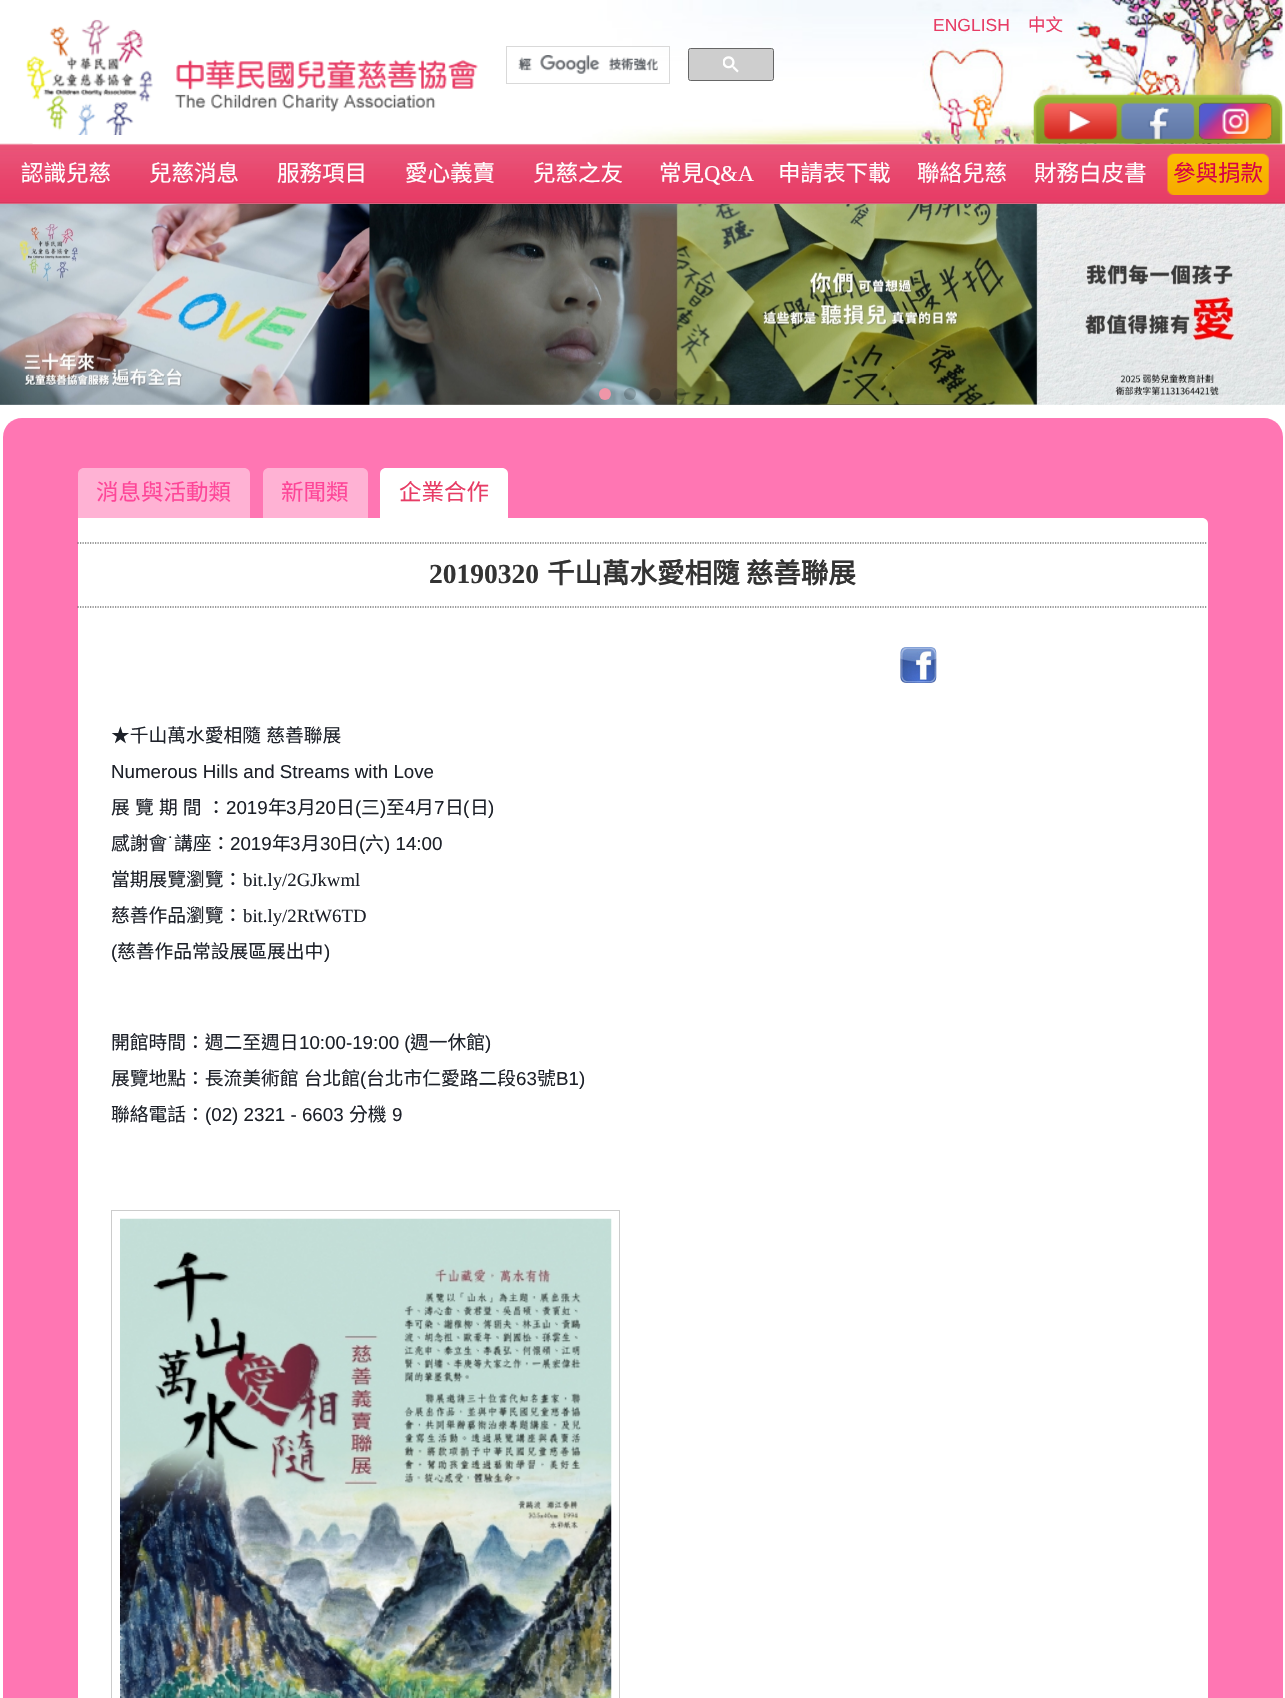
void draw(SkCanvas* canvas) {
  SkPaint paint;
  paint.setAntiAlias(true);
  auto face = [&](const char* family, int weight, float size, bool italic = false) {
    SkFontStyle style(weight, SkFontStyle::kNormal_Width,
      italic ? SkFontStyle::kItalic_Slant : SkFontStyle::kUpright_Slant);
    SkFont result(fontMgr->matchFamilyStyle(family, style), size);
    result.setSubpixel(true);
    return result;
  };
  auto writeSpaced = [&](const char* s, float x, float y, const SkFont& font, const SkPaint& ink, float letter, float word) {
    std::vector<SkGlyphID> glyphs(font.countText(s, strlen(s), SkTextEncoding::kUTF8));
    std::vector<float> xs(glyphs.size());
    font.textToGlyphs(s, strlen(s), SkTextEncoding::kUTF8, glyphs);
    font.getXPos(glyphs, xs, x);
    float extra = 0;
    for (size_t i = 0; i < glyphs.size(); i++) {
      xs[i] += extra;
      extra += letter + word * (glyphs[i] == font.unicharToGlyph(' '));
    }
    canvas->drawTextBlob(SkTextBlob::MakeFromPosHGlyphs(glyphs, xs, y, font), 0, 0, ink);
  };
  auto paste = [&](const char* path, float x, float y, float w, float h) {
    auto image = SkImages::DeferredFromEncodedData(SkData::MakeFromFileName(path));
    canvas->drawImageRect(image, SkRect::MakeXYWH(x, y, w, h), SkSamplingOptions());
  };
  auto shape = [&](const char* data, bool evenOdd = false) {
    SkPath result = *SkParsePath::FromSVGString(data);
    if (evenOdd) result.setFillType(SkPathFillType::kEvenOdd);
    return result;
  };
  canvas->clear(0xffffffff);
  paste("img/9.png", 0, 143, 1285, 61);
  paste("img/1.png", 32, 0, 1251, 144);
  paste("img/2.png", 26, 19, 452, 116);
  paint.setStroke(true);
  paint.setStrokeWidth(1);
  paint.setColor(0xffd9d9d9);
  canvas->drawRect(SkRect::MakeXYWH(506.5f, 46.5f, 163, 37), paint);
  paste("img/3.png", 518, 55, 140, 19);
  paint.setStroke(false);
  paint.setColor(0xffcecece);
  canvas->drawRoundRect(SkRect::MakeXYWH(688.5f, 48.5f, 85, 32), 2, 2, paint);
  paint.setStroke(true);
  paint.setColor(0xff666666);
  canvas->drawRoundRect(SkRect::MakeXYWH(688.5f, 48.5f, 85, 32), 2, 2, paint);
  paste("img/4.png", 723, 56, 16, 17);
  paste("img/5.png", 1033, 93, 250, 51);
  paste("img/6.png", 1043, 102, 75, 38);
  paste("img/7.png", 1121, 102, 74, 38);
  paste("img/8.png", 1198, 102, 75, 38);
  paste("img/10.png", 1167, 153, 102, 42);
  paste("img/11.png", 0, 204, 1285, 201);
  paint.setStroke(false);
  paint.setColor(0xffef96a8);
  canvas->drawCircle(605, 394, 6, paint);
  paint.setColor(0x33000000);
  canvas->drawCircle(630, 394, 6, paint);
  canvas->drawCircle(655, 394, 6, paint);
  canvas->drawCircle(680, 394, 6, paint);
  paint.setColor(0xffff76b3);
  canvas->drawRoundRect(SkRect::MakeXYWH(3, 418, 1280, 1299), 19, 19, paint);
  paint.setColor(0xffffb2d4);
  canvas->drawPath(shape("M84 468H244C247.5 468 250 470.5 250 474V518H78V474C78 470.5 80.5 468 84 468Z"), paint);
  canvas->drawPath(shape("M269 468H362C365.5 468 368 470.5 368 474V518H263V474C263 470.5 265.5 468 269 468Z"), paint);
  paint.setColor(0xffffffff);
  canvas->drawPath(shape("M386 468H502C505.5 468 508 470.5 508 474V518H380V474C380 470.5 382.5 468 386 468Z"), paint);
  canvas->drawPath(shape("M78 518H1202C1205.5 518 1208 520.5 1208 524V543H78Z"), paint);
  canvas->drawRect(SkRect::MakeXYWH(78, 543, 1130, 1155), paint);
  paint.setStroke(true);
  paint.setStrokeWidth(1.2f);
  paint.setColor(0xff333333);
  paint.setPathEffect(SkDashPathEffect::Make({{1.25f, 1.25f}}, 0));
  canvas->drawPath(shape("M77.5 543H1207.5"), paint);
  paint.setPathEffect(nullptr);
  paint.setPathEffect(SkDashPathEffect::Make({{1.25f, 1.25f}}, 0));
  canvas->drawPath(shape("M77.5 607H1207.5"), paint);
  paint.setPathEffect(nullptr);
  paste("img/12.png", 900, 647, 37, 36);
  paint.setStrokeWidth(1);
  paint.setColor(0xffcccccc);
  canvas->drawRect(SkRect::MakeXYWH(111.5f, 1210.5f, 508, 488), paint);
  paste("img/13.png", 120, 1218, 492, 480);
  auto f0 = face("Liberation Sans", 400, 17.5f);
  paint.setStroke(false);
  paint.setColor(0xffe73c65);
  canvas->drawString("ENGLISH", 933, 31, f0, paint);
  auto f1 = face("Noto Sans CJK TC", 400, 17.5f);
  canvas->drawString("中文", 1028, 31, f1, paint);
  auto f2 = face("Noto Sans CJK TC", 400, 22.5f);
  paint.setColor(0xffffffff);
  {
    const struct { const char* s; float x, y; } items[] = {
      {"認識兒慈", 21, 181},
      {"兒慈消息", 149, 181},
      {"服務項目", 277, 181},
      {"愛心義賣", 405, 181},
      {"兒慈之友", 533, 181},
      {"常見", 659, 181},
    };
    for (auto [s, x, y] : items) {
      canvas->drawString(s, x, y, f2, paint);
    }
  }
  auto f3 = face("Liberation Serif", 400, 22.5f);
  canvas->drawString("Q&A", 704, 181, f3, paint);
  {
    const struct { const char* s; float x, y; } items[] = {
      {"申請表下載", 778, 181},
      {"聯絡兒慈", 917, 181},
      {"財務白皮書", 1034, 181},
    };
    for (auto [s, x, y] : items) {
      canvas->drawString(s, x, y, f2, paint);
    }
  }
  paint.setColor(0xffd70146);
  canvas->drawString("參與捐款", 1173, 181, f2, paint);
  paint.setColor(0xfffe4698);
  canvas->drawString("消息與活動類", 96, 500, f2, paint);
  canvas->drawString("新聞類", 281, 500, f2, paint);
  paint.setColor(0xffe73c65);
  canvas->drawString("企業合作", 399, 500, f2, paint);
  auto f4 = face("Liberation Serif", 700, 27.5f);
  paint.setColor(0xff333333);
  canvas->drawString("20190320", 429, 583, f4, paint);
  auto f5 = face("Noto Sans CJK TC", 700, 27.5f);
  canvas->drawString("千山萬水愛相隨 慈善聯展", 547, 583, f5, paint);
  auto f6 = face("Noto Sans CJK TC", 400, 18.75f);
  paint.setColor(0xff1d2129);
  writeSpaced("★千山萬水愛相隨 慈善聯展", 111, 742, f6, paint, 0, 1);
  auto f7 = face("Liberation Sans", 400, 18.75f);
  canvas->drawString("Numerous Hills and Streams with Love", 111, 778, f7, paint);
  writeSpaced("展 覽 期 間 ：", 111, 814, f6, paint, 0, 1);
  canvas->drawString("2019", 226, 814, f7, paint);
  canvas->drawString("年", 268, 814, f6, paint);
  canvas->drawString("3", 286, 814, f7, paint);
  canvas->drawString("月", 297, 814, f6, paint);
  canvas->drawString("20", 315, 814, f7, paint);
  canvas->drawString("日", 336, 814, f6, paint);
  canvas->drawString("(", 355, 814, f7, paint);
  canvas->drawString("三", 361, 814, f6, paint);
  canvas->drawString(")", 380, 814, f7, paint);
  canvas->drawString("至", 386, 814, f6, paint);
  canvas->drawString("4", 405, 814, f7, paint);
  canvas->drawString("月", 415, 814, f6, paint);
  canvas->drawString("7", 434, 814, f7, paint);
  canvas->drawString("日", 445, 814, f6, paint);
  canvas->drawString("(", 463, 814, f7, paint);
  canvas->drawString("日", 470, 814, f6, paint);
  canvas->drawString(")", 488, 814, f7, paint);
  canvas->drawString("感謝會", 111, 850, f6, paint);
  canvas->drawString("˙", 168, 850, f7, paint);
  canvas->drawString("講座：", 174, 850, f6, paint);
  canvas->drawString("2019", 230, 850, f7, paint);
  canvas->drawString("年", 272, 850, f6, paint);
  canvas->drawString("3", 290, 850, f7, paint);
  canvas->drawString("月", 301, 850, f6, paint);
  canvas->drawString("30", 320, 850, f7, paint);
  canvas->drawString("日", 340, 850, f6, paint);
  canvas->drawString("(", 359, 850, f7, paint);
  canvas->drawString("六", 365, 850, f6, paint);
  canvas->drawString(") 14:00", 384, 850, f7, paint);
  canvas->drawString("當期展覽瀏覽：", 111, 886, f6, paint);
  auto f8 = face("Liberation Serif", 400, 18.75f);
  canvas->drawString("bit.ly/2GJkwml", 243, 886, f8, paint);
  canvas->drawString("慈善作品瀏覽：", 111, 922, f6, paint);
  canvas->drawString("bit.ly/2RtW6TD", 243, 922, f8, paint);
  canvas->drawString("(", 111, 958, f7, paint);
  canvas->drawString("慈善作品常設展區展出中", 117, 958, f6, paint);
  canvas->drawString(")", 324, 958, f7, paint);
  canvas->drawString("開館時間：週二至週日", 111, 1049, f6, paint);
  canvas->drawString("10:00-19:00 (", 299, 1049, f7, paint);
  canvas->drawString("週一休館", 410, 1049, f6, paint);
  canvas->drawString(")", 485, 1049, f7, paint);
  writeSpaced("展覽地點：長流美術館 台北館", 111, 1085, f6, paint, 0, 1);
  canvas->drawString("(", 360, 1085, f7, paint);
  canvas->drawString("台北市仁愛路二段", 366, 1085, f6, paint);
  canvas->drawString("63", 516, 1085, f7, paint);
  canvas->drawString("號", 537, 1085, f6, paint);
  canvas->drawString("B1)", 556, 1085, f7, paint);
  canvas->drawString("聯絡電話：", 111, 1121, f6, paint);
  canvas->drawString("(02) 2321 - 6603", 205, 1121, f7, paint);
  canvas->drawString("分機", 349, 1121, f6, paint);
  canvas->drawString("9", 392, 1121, f7, paint);
}
